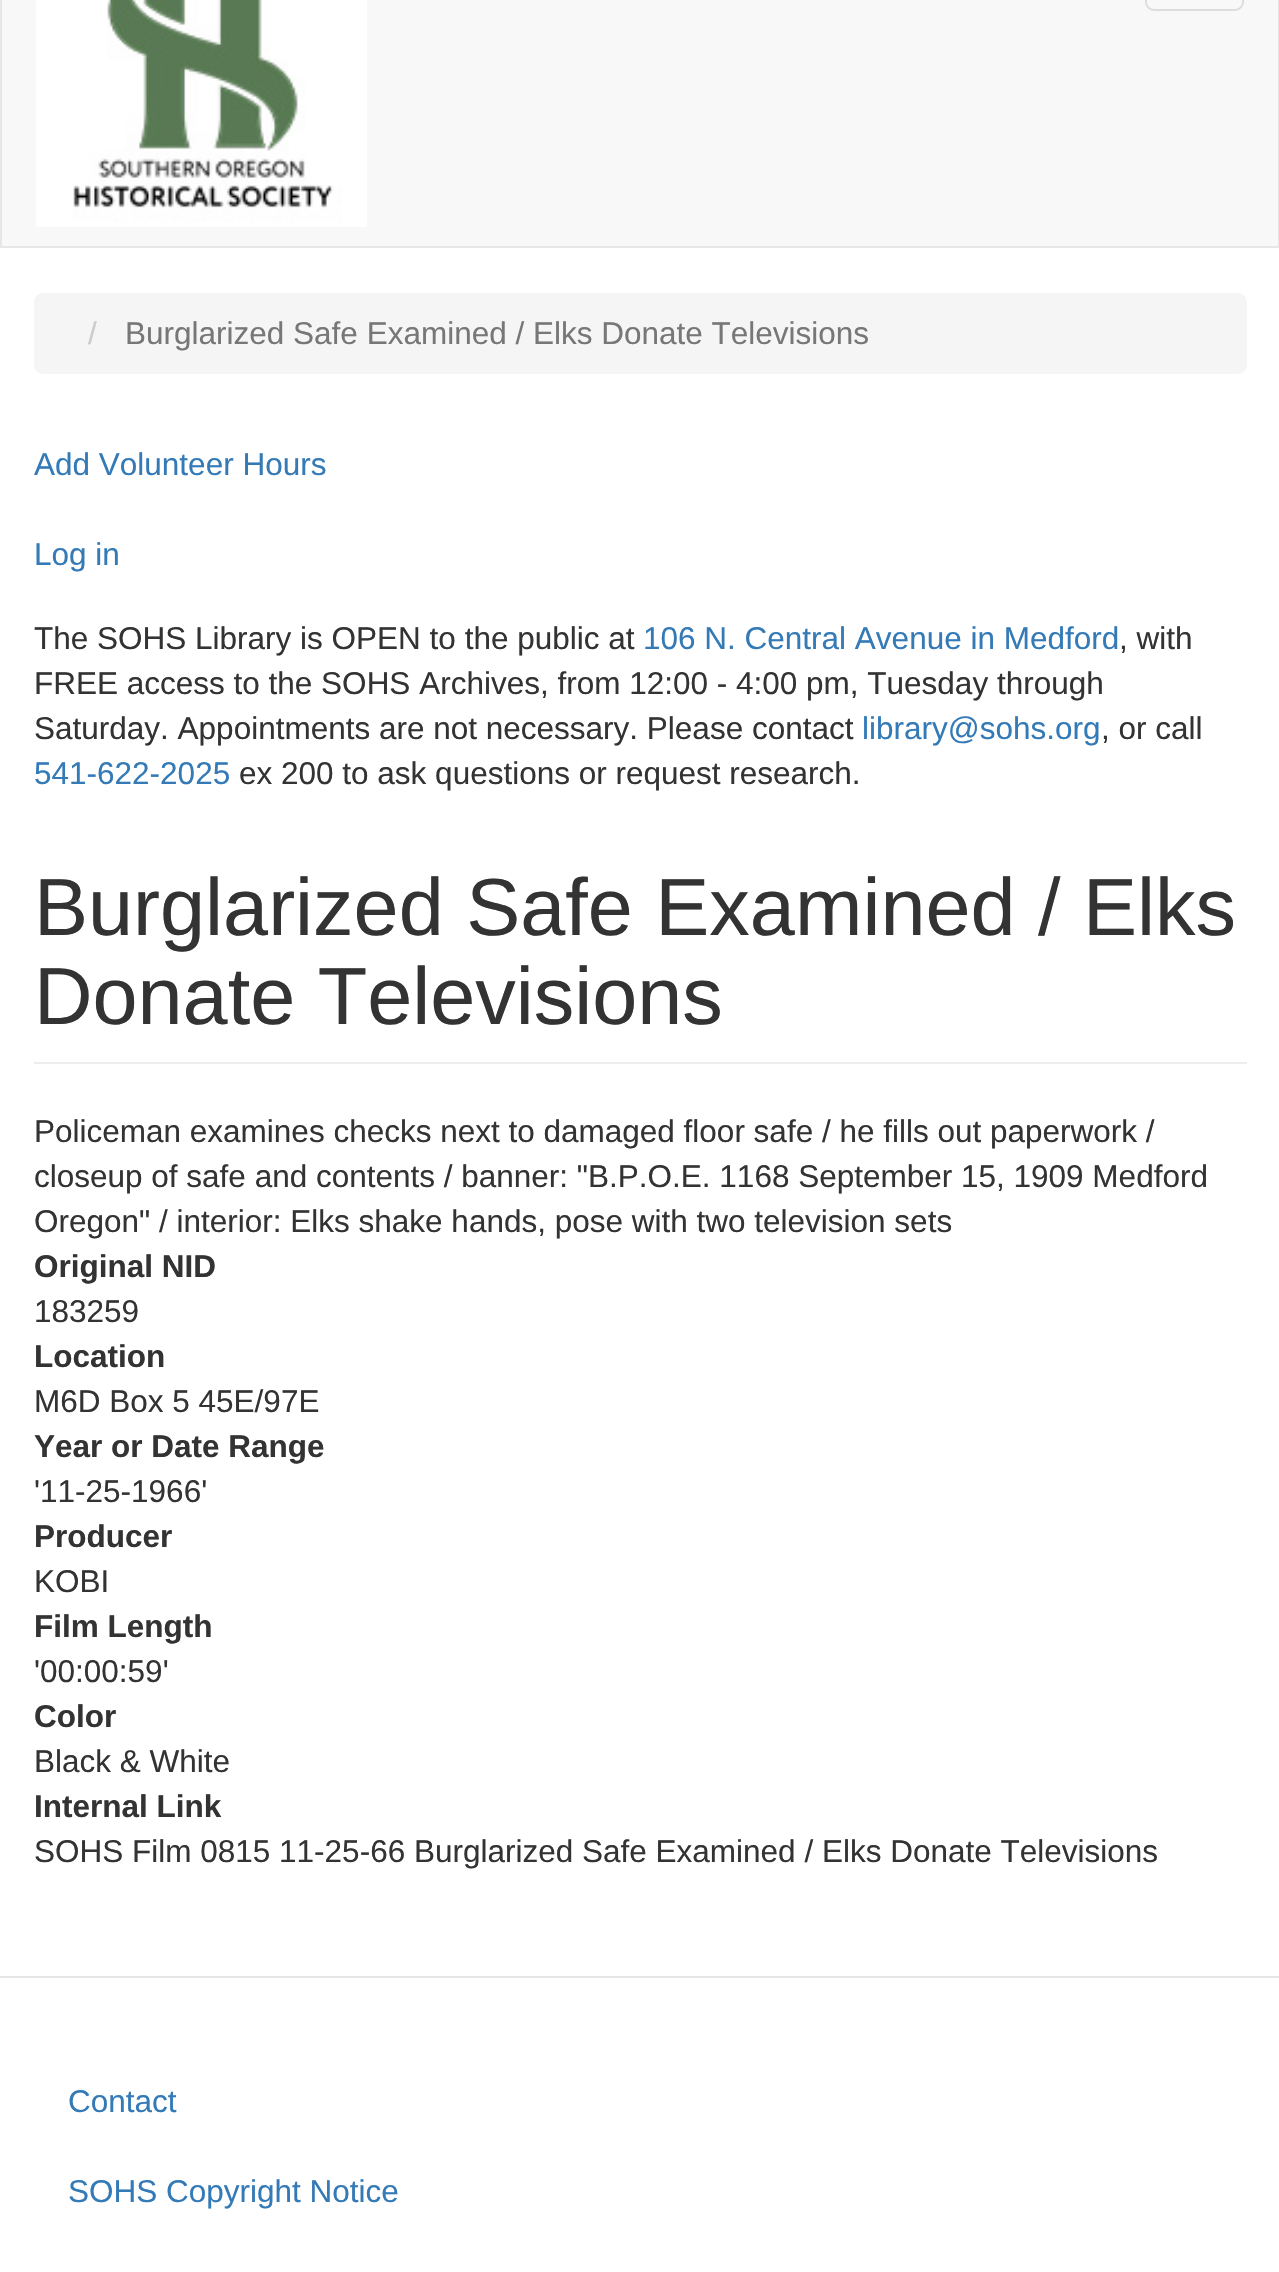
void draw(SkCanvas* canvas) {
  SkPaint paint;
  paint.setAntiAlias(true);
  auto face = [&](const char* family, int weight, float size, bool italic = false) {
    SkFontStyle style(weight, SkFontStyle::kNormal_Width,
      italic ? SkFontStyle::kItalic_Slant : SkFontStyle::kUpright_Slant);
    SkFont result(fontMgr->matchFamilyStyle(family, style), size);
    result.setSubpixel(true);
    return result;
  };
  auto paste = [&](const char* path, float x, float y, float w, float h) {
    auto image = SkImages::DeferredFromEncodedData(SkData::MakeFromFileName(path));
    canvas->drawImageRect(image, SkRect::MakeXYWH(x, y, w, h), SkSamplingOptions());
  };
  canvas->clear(0xffffffff);
  paint.setColor(0xfff8f8f8);
  canvas->drawRect(SkRect::MakeXYWH(1, -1, 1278, 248), paint);
  paint.setStroke(true);
  paint.setStrokeWidth(2);
  paint.setColor(0xffe7e7e7);
  canvas->drawRect(SkRect::MakeXYWH(1, -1, 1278, 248), paint);
  paste("img/1.png", 36, 0, 331, 227);
  paint.setColor(0xffdddddd);
  canvas->drawRoundRect(SkRect::MakeXYWH(1146, -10, 97, 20), 8, 8, paint);
  paint.setStroke(false);
  paint.setColor(0xfff5f5f5);
  canvas->drawRoundRect(SkRect::MakeXYWH(34, 293, 1213, 81), 9, 9, paint);
  paint.setColor(0xffeeeeee);
  canvas->drawRect(SkRect::MakeXYWH(34, 1062, 1213, 2), paint);
  paint.setColor(0xffe5e5e5);
  canvas->drawRect(SkRect::MakeXYWH(0, 1976, 1279, 2), paint);
  auto f0 = face("Liberation Sans", 400, 31.5f);
  paint.setColor(0xffcccccc);
  canvas->drawString("/", 88, 344, f0, paint);
  paint.setColor(0xff777777);
  canvas->drawString("Burglarized Safe Examined / Elks Donate Televisions", 125, 344, f0, paint);
  paint.setColor(0xff337ab7);
  canvas->drawString("Add Volunteer Hours", 34, 475, f0, paint);
  canvas->drawString("Log in", 34, 565, f0, paint);
  paint.setColor(0xff333333);
  canvas->drawString("The SOHS Library is OPEN to the public at", 34, 649, f0, paint);
  paint.setColor(0xff337ab7);
  canvas->drawString("106 N. Central Avenue in Medford", 643, 649, f0, paint);
  paint.setColor(0xff333333);
  {
    const struct { const char* s; float x, y; } items[] = {
      {", with", 1119, 649},
      {"FREE access to the SOHS Archives, from 12:00 - 4:00 pm, Tuesday through", 34, 694},
      {"Saturday. Appointments are not necessary. Please contact", 34, 739},
    };
    for (auto [s, x, y] : items) {
      canvas->drawString(s, x, y, f0, paint);
    }
  }
  paint.setColor(0xff337ab7);
  canvas->drawString("library@sohs.org", 862, 739, f0, paint);
  paint.setColor(0xff333333);
  canvas->drawString(", or call", 1101, 739, f0, paint);
  paint.setColor(0xff337ab7);
  canvas->drawString("541-622-2025", 34, 784, f0, paint);
  paint.setColor(0xff333333);
  canvas->drawString("ex 200 to ask questions or request research.", 239, 784, f0, paint);
  auto f1 = face("Liberation Sans", 400, 81);
  canvas->drawString("Burglarized Safe Examined / Elks", 34, 935, f1, paint);
  canvas->drawString("Donate Televisions", 34, 1024, f1, paint);
  {
    const struct { const char* s; float x, y; } items[] = {
      {"Policeman examines checks next to damaged floor safe / he fills out paperwork /", 34, 1142},
      {"closeup of safe and contents / banner: \"B.P.O.E. 1168 September 15, 1909 Medford", 34, 1187},
      {"Oregon\" / interior: Elks shake hands, pose with two television sets", 34, 1232},
    };
    for (auto [s, x, y] : items) {
      canvas->drawString(s, x, y, f0, paint);
    }
  }
  auto f2 = face("Liberation Sans", 700, 31.5f);
  canvas->drawString("Original NID", 34, 1277, f2, paint);
  canvas->drawString("183259", 34, 1322, f0, paint);
  canvas->drawString("Location", 34, 1367, f2, paint);
  canvas->drawString("M6D Box 5 45E/97E", 34, 1412, f0, paint);
  canvas->drawString("Year or Date Range", 34, 1457, f2, paint);
  canvas->drawString("'11-25-1966'", 34, 1502, f0, paint);
  canvas->drawString("Producer", 34, 1547, f2, paint);
  canvas->drawString("KOBI", 34, 1592, f0, paint);
  canvas->drawString("Film Length", 34, 1637, f2, paint);
  canvas->drawString("'00:00:59'", 34, 1682, f0, paint);
  canvas->drawString("Color", 34, 1727, f2, paint);
  canvas->drawString("Black & White", 34, 1772, f0, paint);
  canvas->drawString("Internal Link", 34, 1817, f2, paint);
  canvas->drawString("SOHS Film 0815 11-25-66 Burglarized Safe Examined / Elks Donate Televisions", 34, 1862, f0, paint);
  paint.setColor(0xff337ab7);
  canvas->drawString("Contact", 68, 2112, f0, paint);
  canvas->drawString("SOHS Copyright Notice", 68, 2202, f0, paint);
}
